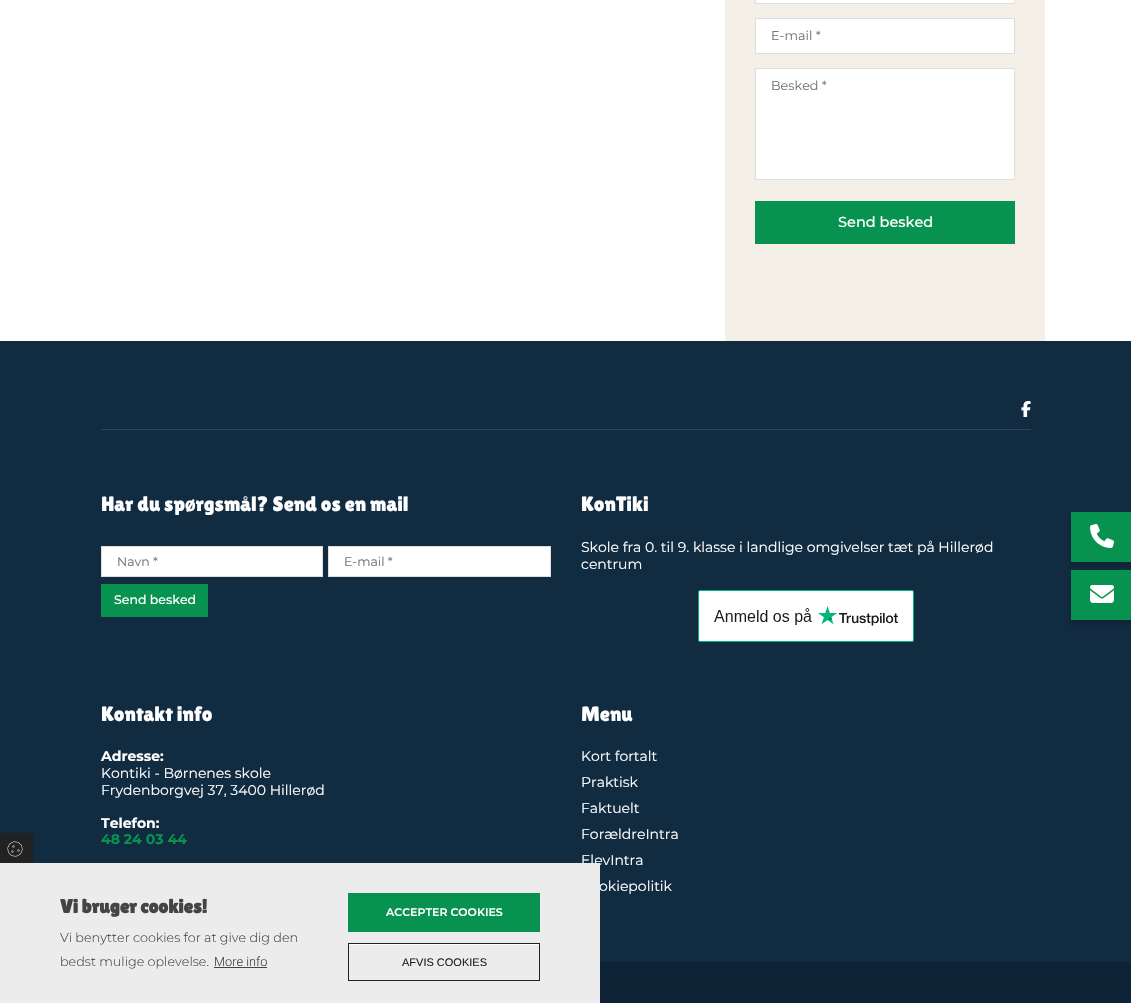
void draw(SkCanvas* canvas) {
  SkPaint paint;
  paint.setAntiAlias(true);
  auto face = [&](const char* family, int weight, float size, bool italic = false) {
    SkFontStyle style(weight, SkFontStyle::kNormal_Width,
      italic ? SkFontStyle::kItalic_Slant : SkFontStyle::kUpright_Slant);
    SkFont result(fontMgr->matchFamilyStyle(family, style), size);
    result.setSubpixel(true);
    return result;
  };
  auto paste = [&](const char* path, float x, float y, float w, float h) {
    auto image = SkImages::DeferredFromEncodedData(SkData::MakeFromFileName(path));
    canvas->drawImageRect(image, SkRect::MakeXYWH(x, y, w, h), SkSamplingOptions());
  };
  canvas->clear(0xffffffff);
  paint.setColor(0xfff5f0e7);
  canvas->drawRect(SkRect::MakeXYWH(725, 0, 320, 341), paint);
  paint.setColor(0xffffffff);
  canvas->drawRect(SkRect::MakeXYWH(755.5f, -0.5f, 259, 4), paint);
  paint.setStroke(true);
  paint.setStrokeWidth(1);
  paint.setColor(0xffdddddd);
  canvas->drawRect(SkRect::MakeXYWH(755.5f, -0.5f, 259, 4), paint);
  paint.setStroke(false);
  paint.setColor(0xffffffff);
  canvas->drawRect(SkRect::MakeXYWH(755.5f, 18.5f, 259, 35), paint);
  paint.setStroke(true);
  paint.setColor(0xffdddddd);
  canvas->drawRect(SkRect::MakeXYWH(755.5f, 18.5f, 259, 35), paint);
  paint.setStroke(false);
  paint.setColor(0xffffffff);
  canvas->drawRect(SkRect::MakeXYWH(755.5f, 68.5f, 259, 111), paint);
  paint.setStroke(true);
  paint.setColor(0xffdddddd);
  canvas->drawRect(SkRect::MakeXYWH(755.5f, 68.5f, 259, 111), paint);
  paint.setStroke(false);
  {
    const struct { float x, y, w, h; SkColor color; } items[] = {
      {755, 201, 260, 43, 0xff079250},
      {0, 341, 1131, 621, 0xff112b41},
      {101, 429, 930, 1, 0xff2e4458},
    };
    for (auto [x, y, w, h, color] : items) {
      paint.setColor(color);
      canvas->drawRect(SkRect::MakeXYWH(x, y, w, h), paint);
    }
  }
  paste("img/1.png", 1021, 401, 10, 16);
  paint.setColor(0xffffffff);
  canvas->drawRect(SkRect::MakeXYWH(101.5f, 546.5f, 221, 30), paint);
  paint.setStroke(true);
  paint.setColor(0xffdddddd);
  canvas->drawRect(SkRect::MakeXYWH(101.5f, 546.5f, 221, 30), paint);
  paint.setStroke(false);
  paint.setColor(0xffffffff);
  canvas->drawRect(SkRect::MakeXYWH(328.5f, 546.5f, 222, 30), paint);
  paint.setStroke(true);
  paint.setColor(0xffdddddd);
  canvas->drawRect(SkRect::MakeXYWH(328.5f, 546.5f, 222, 30), paint);
  paint.setStroke(false);
  paint.setColor(0xff079250);
  canvas->drawRect(SkRect::MakeXYWH(101, 584, 107, 33), paint);
  paste("img/2.png", 698, 590, 216, 52);
  paint.setColor(0x33000000);
  paint.setMaskFilter(SkMaskFilter::MakeBlur(kNormal_SkBlurStyle, 2.5f));
  canvas->drawRect(SkRect::MakeXYWH(1071, 516, 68, 50), paint);
  paint.setMaskFilter(nullptr);
  paint.setColor(0xff079250);
  canvas->drawRect(SkRect::MakeXYWH(1071, 512, 60, 50), paint);
  paste("img/3.png", 1090, 524, 24, 24);
  paint.setColor(0x33000000);
  paint.setMaskFilter(SkMaskFilter::MakeBlur(kNormal_SkBlurStyle, 2.5f));
  canvas->drawRect(SkRect::MakeXYWH(1071, 574, 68, 50), paint);
  paint.setMaskFilter(nullptr);
  paint.setColor(0xff079250);
  canvas->drawRect(SkRect::MakeXYWH(1071, 570, 60, 50), paint);
  paste("img/4.png", 1090, 585, 24, 18);
  paint.setColor(0xff0e2436);
  canvas->drawRect(SkRect::MakeXYWH(600, 962, 531, 41), paint);
  paint.setColor(0xff222222);
  canvas->drawRect(SkRect::MakeXYWH(0, 833, 33, 30), paint);
  paste("img/5.png", 7, 841, 16, 16);
  auto f0 = face("Montserrat", 400, 12.75f);
  paint.setColor(0xff757575);
  canvas->drawString("E-mail *", 771, 40, f0, paint);
  canvas->drawString("Besked *", 771, 90, f0, paint);
  auto f1 = face("Montserrat", 500, 14.5f);
  paint.setColor(0xffffffff);
  canvas->drawString("Send besked", 838, 227, f1, paint);
  auto f2 = face("Lilita One", 400, 20.75f);
  canvas->drawString("Har du spørgsmål? Send os en mail", 101, 511, f2, paint);
  auto f3 = face("Montserrat", 400, 12.5f);
  paint.setColor(0xff757575);
  canvas->drawString("Navn *", 117, 566, f3, paint);
  canvas->drawString("E-mail *", 344, 566, f3, paint);
  auto f4 = face("Montserrat", 500, 12.5f);
  paint.setColor(0xffffffff);
  canvas->drawString("Send besked", 114, 604, f4, paint);
  canvas->drawString("KonTiki", 581, 511, f2, paint);
  auto f5 = face("Montserrat", 400, 14);
  canvas->drawString("Skole fra 0. til 9. klasse i landlige omgivelser tæt på Hillerød", 581, 552, f5, paint);
  canvas->drawString("centrum", 581, 569, f5, paint);
  canvas->drawString("Kontakt info", 101, 721, f2, paint);
  auto f6 = face("Montserrat", 700, 14);
  canvas->drawString("Adresse:", 101, 761, f6, paint);
  canvas->drawString("Kontiki - Børnenes skole", 101, 778, f5, paint);
  canvas->drawString("Frydenborgvej 37, 3400 Hillerød", 101, 795, f5, paint);
  canvas->drawString("Telefon:", 101, 828, f6, paint);
  paint.setColor(0xff079250);
  canvas->drawString("48 24 03 44", 101, 844, f6, paint);
  paint.setColor(0xffffffff);
  canvas->drawString("Menu", 581, 721, f2, paint);
  {
    const struct { const char* s; float x, y; } items[] = {
      {"Kort fortalt", 581, 761},
      {"Praktisk", 581, 787},
      {"Faktuelt", 581, 813},
      {"ForældreIntra", 581, 839},
      {"ElevIntra", 581, 865},
      {"okiepolitik", 599, 891},
    };
    for (auto [s, x, y] : items) {
      canvas->drawString(s, x, y, f5, paint);
    }
  }
  paint.setColor(0xffececec);
  canvas->drawRect(SkRect::MakeXYWH(0, 863, 600, 140), paint);
  auto f7 = face("Lilita One", 700, 19.25f);
  paint.setColor(0xff444444);
  canvas->drawString("Vi bruger cookies!", 60, 913, f7, paint);
  auto f8 = face("Montserrat", 300, 12.75f);
  canvas->drawString("Vi benytter cookies for at give dig den", 60, 942, f8, paint);
  canvas->drawString("bedst mulige oplevelse.", 60, 966, f8, paint);
  auto f9 = face("Roboto", 300, 12.75f);
  canvas->drawString("More info", 214, 966, f9, paint);
  canvas->drawRect(SkRect::MakeXYWH(214, 967, 53, 1), paint);
  paint.setColor(0xff079250);
  canvas->drawRect(SkRect::MakeXYWH(348, 893, 192, 39), paint);
  auto f10 = face("Montserrat", 600, 11);
  paint.setColor(0xffffffff);
  canvas->drawString("ACCEPTER COOKIES", 386, 916, f10, paint);
  canvas->drawRect(SkRect::MakeXYWH(349, 944, 190, 1), paint);
  paint.setStroke(true);
  paint.setColor(0xff222222);
  canvas->drawRect(SkRect::MakeXYWH(348.5f, 943.5f, 191, 37), paint);
  auto f11 = face("Liberation Sans", 400, 11);
  paint.setStroke(false);
  canvas->drawString("AFVIS COOKIES", 402, 966, f11, paint);
}
